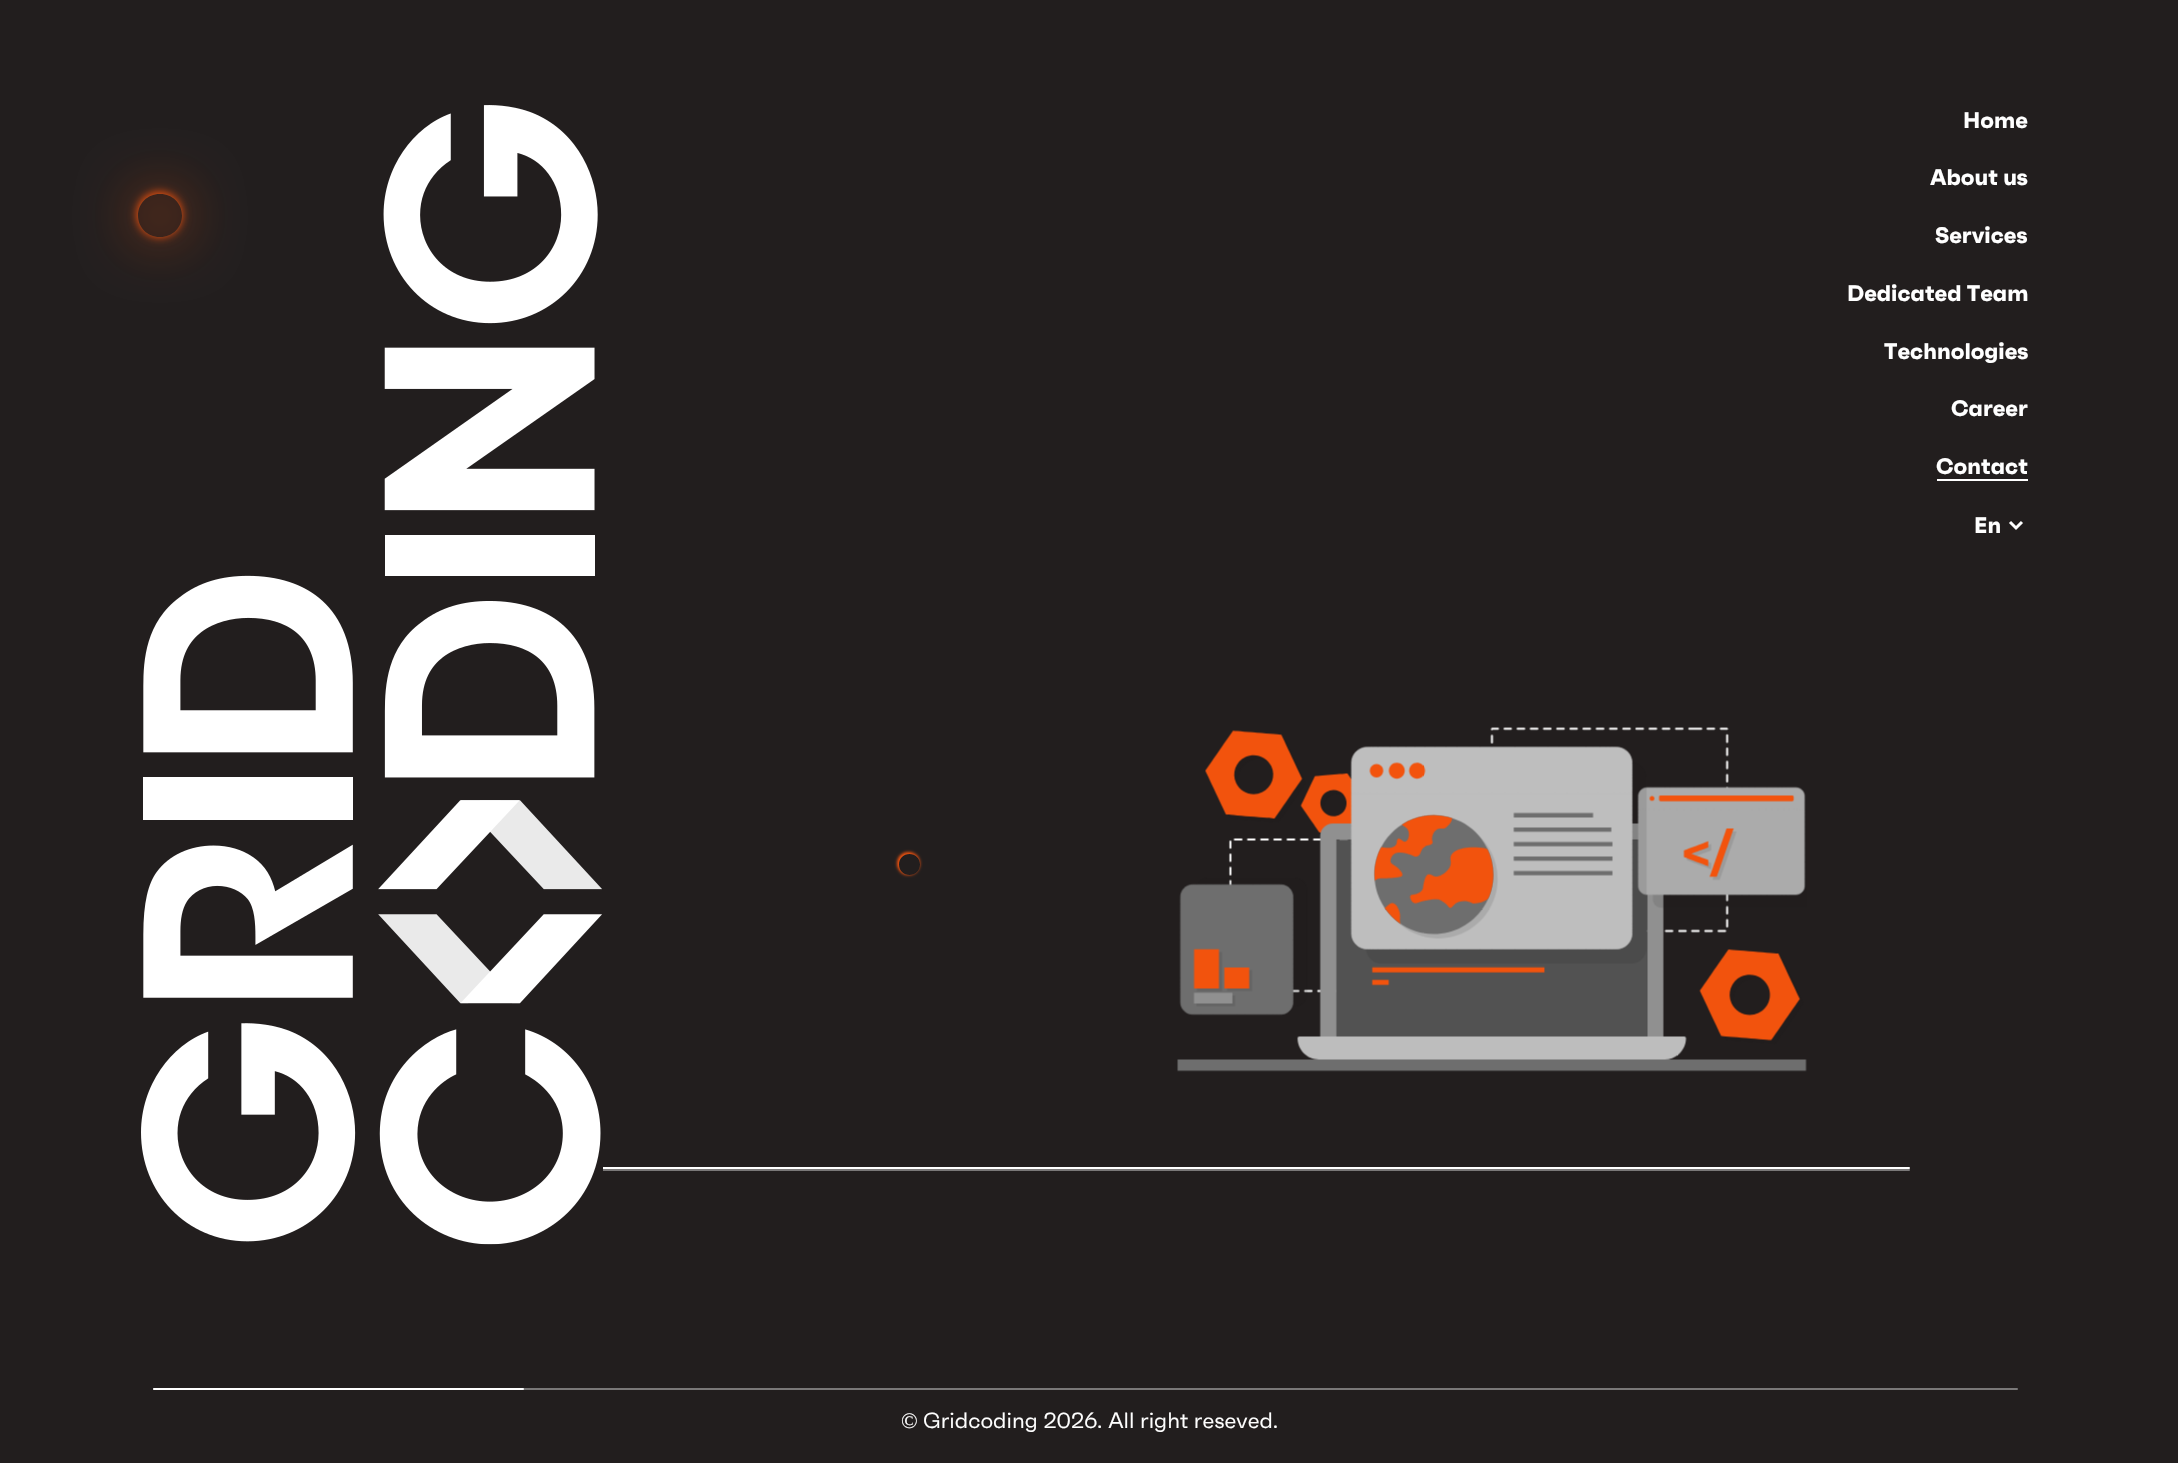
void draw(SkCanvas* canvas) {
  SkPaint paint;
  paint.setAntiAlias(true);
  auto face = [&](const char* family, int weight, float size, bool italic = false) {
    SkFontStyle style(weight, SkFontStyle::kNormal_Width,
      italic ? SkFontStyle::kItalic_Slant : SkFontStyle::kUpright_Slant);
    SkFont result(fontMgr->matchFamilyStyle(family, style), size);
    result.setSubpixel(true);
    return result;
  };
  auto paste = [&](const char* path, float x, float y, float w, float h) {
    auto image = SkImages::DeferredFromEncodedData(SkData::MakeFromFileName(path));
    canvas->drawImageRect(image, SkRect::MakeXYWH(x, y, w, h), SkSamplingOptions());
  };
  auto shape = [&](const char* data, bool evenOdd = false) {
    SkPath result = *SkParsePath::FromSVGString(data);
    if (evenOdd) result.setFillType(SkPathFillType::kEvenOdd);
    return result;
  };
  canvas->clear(0xff221e1e);
  paint.setColor(0xff7a7878);
  canvas->drawRoundRect(SkRect::MakeXYWH(261, 1169, 1649, 2), 1, 1, paint);
  paint.setColor(0xffffffff);
  canvas->drawRoundRect(SkRect::MakeXYWH(261, 1167, 1649, 2), 1, 1, paint);
  paint.setColor(0xff221e1e);
  canvas->drawRect(SkRect::MakeXYWH(261, 1167, 342, 4), paint);
  paste("img/1.png", 141, 105, 461, 1140);
  canvas->save();
  canvas->clipPath(shape("M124 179H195V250H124ZM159.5 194H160.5C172.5 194 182 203.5 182 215.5C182 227.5 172.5 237 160.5 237H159.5C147.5 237 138 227.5 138 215.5C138 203.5 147.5 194 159.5 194Z", true), true);
  paint.setColor(0xfff0520e);
  paint.setMaskFilter(SkMaskFilter::MakeBlur(kNormal_SkBlurStyle, 4));
  canvas->drawRoundRect(SkRect::MakeXYWH(137, 192, 45, 45), 22.5f, 22.5f, paint);
  paint.setMaskFilter(nullptr);
  canvas->restore();
  paint.setColor(0x99f0520e);
  paint.setMaskFilter(SkMaskFilter::MakeBlur(kNormal_SkBlurStyle, 30));
  canvas->drawRoundRect(SkRect::MakeXYWH(138, 194, 44, 43), 21.5f, 21.5f, paint);
  paint.setMaskFilter(nullptr);
  canvas->save();
  canvas->clipPath(shape("M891 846H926V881H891ZM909.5 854C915.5 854 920 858.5 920 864.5C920 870.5 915.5 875 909.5 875C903.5 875 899 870.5 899 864.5C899 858.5 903.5 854 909.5 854Z", true), true);
  paint.setColor(0xfff3530e);
  paint.setMaskFilter(SkMaskFilter::MakeBlur(kNormal_SkBlurStyle, 1.5f));
  canvas->drawRoundRect(SkRect::MakeXYWH(897, 852, 23, 23), 11.5f, 11.5f, paint);
  paint.setMaskFilter(nullptr);
  canvas->restore();
  paste("img/2.png", 1177, 727, 630, 345);
  paint.setColor(0xff7a7878);
  canvas->drawRoundRect(SkRect::MakeXYWH(153, 1388, 1865, 2), 1, 1, paint);
  paint.setColor(0xffffffff);
  canvas->drawRoundRect(SkRect::MakeXYWH(153, 1388, 371, 2), 1, 1, paint);
  canvas->drawRect(SkRect::MakeXYWH(1937, 479, 91, 2), paint);
  paint.setStroke(true);
  paint.setStrokeWidth(3);
  canvas->drawPath(shape("M2010 522L2016 528L2022 522"), paint);
  auto f0 = face("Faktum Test", 700, 22.5f);
  paint.setStroke(false);
  {
    const struct { const char* s; float x, y; } items[] = {
      {"Home", 1963, 128},
      {"About us", 1930, 185},
      {"Services", 1935, 243},
      {"Dedicated Team", 1847, 301},
      {"Technologies", 1884, 359},
      {"Career", 1951, 416},
      {"Contact", 1936, 474},
      {"En", 1974, 533},
    };
    for (auto [s, x, y] : items) {
      canvas->drawString(s, x, y, f0, paint);
    }
  }
  auto f1 = face("Liberation Serif", 400, 22);
  canvas->drawString("©", 901, 1428, f1, paint);
  auto f2 = face("Faktum Test", 400, 22);
  canvas->drawString("Gridcoding 2026. All right reseved.", 923, 1428, f2, paint);
}
